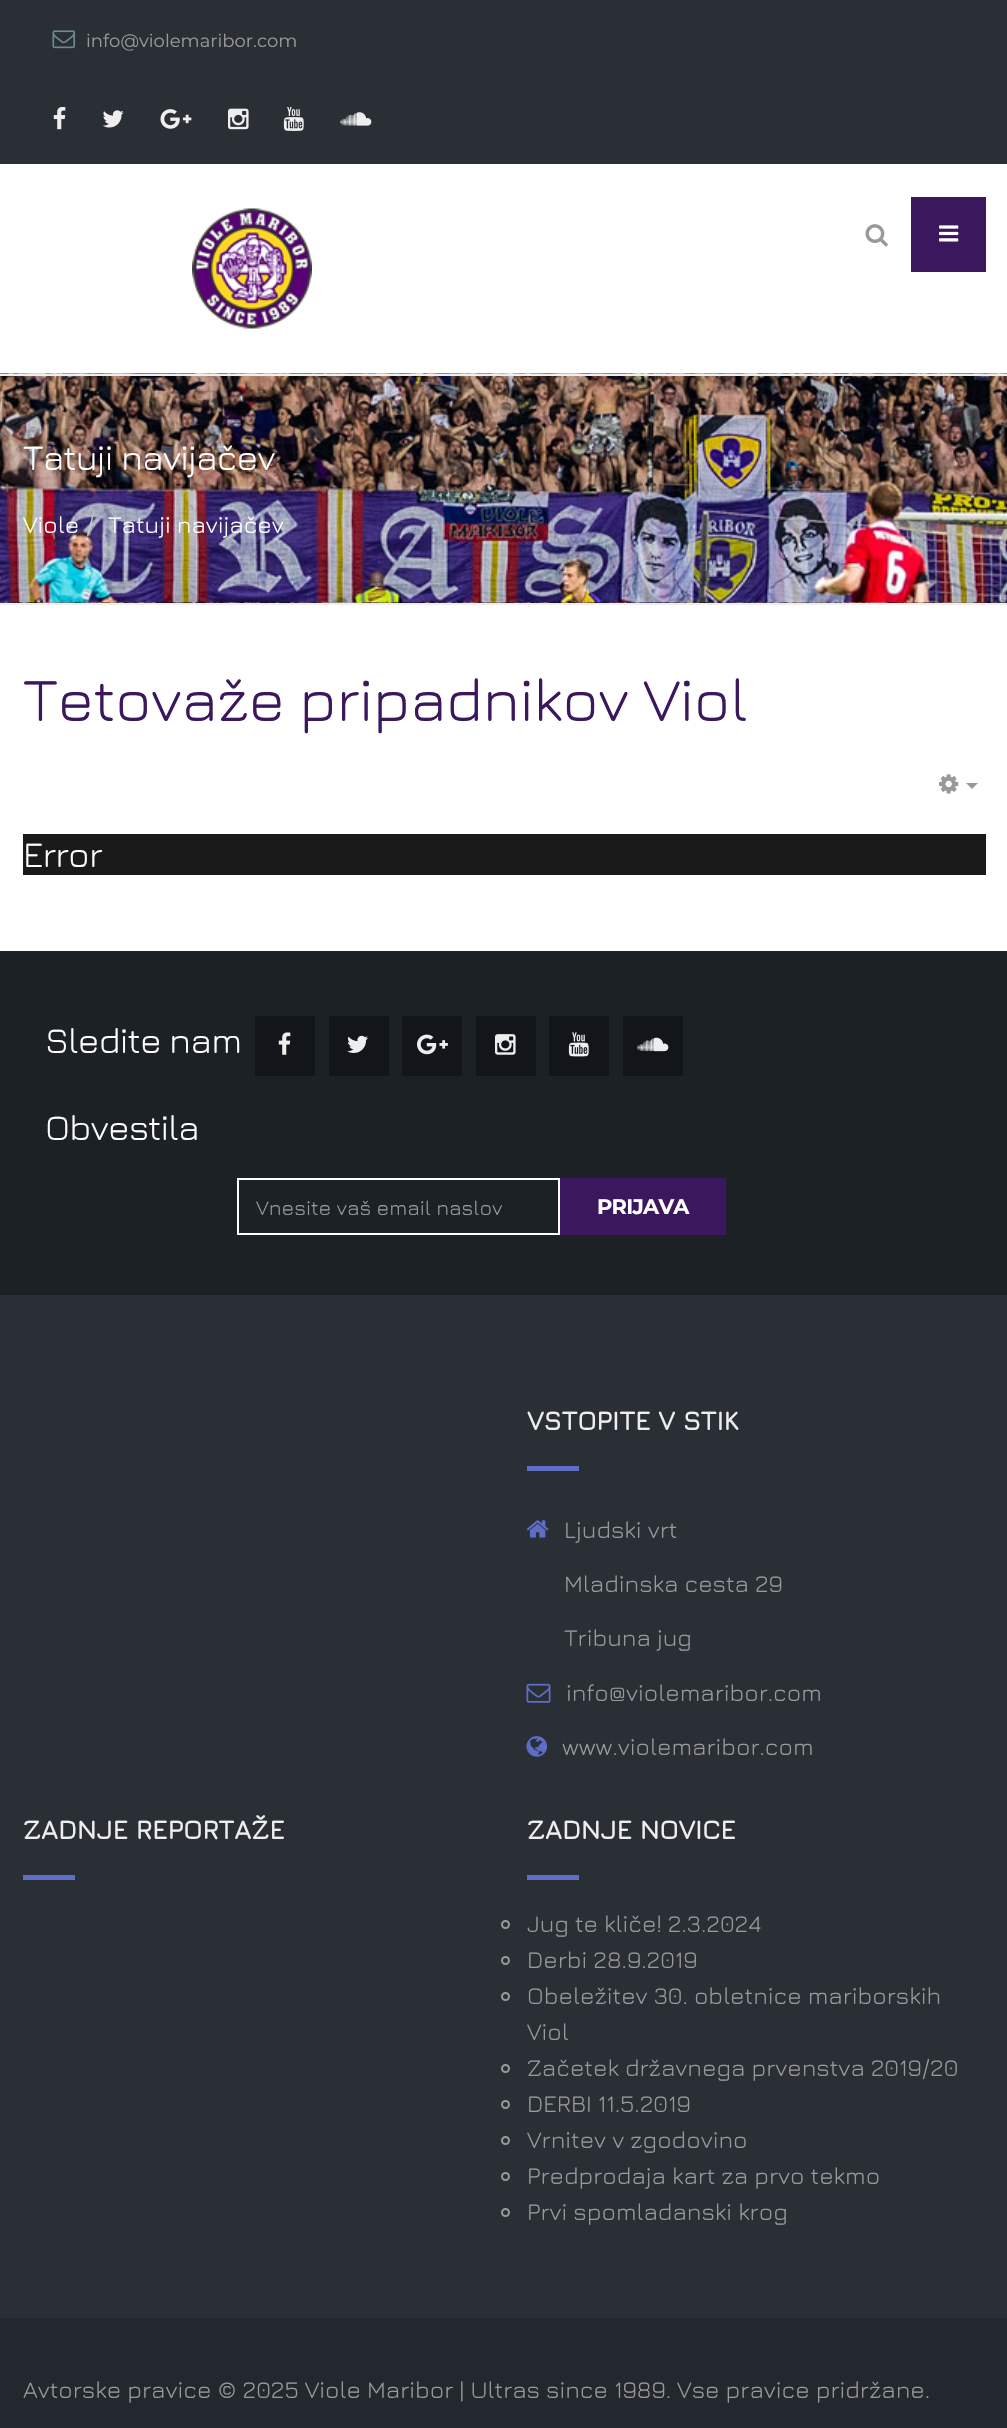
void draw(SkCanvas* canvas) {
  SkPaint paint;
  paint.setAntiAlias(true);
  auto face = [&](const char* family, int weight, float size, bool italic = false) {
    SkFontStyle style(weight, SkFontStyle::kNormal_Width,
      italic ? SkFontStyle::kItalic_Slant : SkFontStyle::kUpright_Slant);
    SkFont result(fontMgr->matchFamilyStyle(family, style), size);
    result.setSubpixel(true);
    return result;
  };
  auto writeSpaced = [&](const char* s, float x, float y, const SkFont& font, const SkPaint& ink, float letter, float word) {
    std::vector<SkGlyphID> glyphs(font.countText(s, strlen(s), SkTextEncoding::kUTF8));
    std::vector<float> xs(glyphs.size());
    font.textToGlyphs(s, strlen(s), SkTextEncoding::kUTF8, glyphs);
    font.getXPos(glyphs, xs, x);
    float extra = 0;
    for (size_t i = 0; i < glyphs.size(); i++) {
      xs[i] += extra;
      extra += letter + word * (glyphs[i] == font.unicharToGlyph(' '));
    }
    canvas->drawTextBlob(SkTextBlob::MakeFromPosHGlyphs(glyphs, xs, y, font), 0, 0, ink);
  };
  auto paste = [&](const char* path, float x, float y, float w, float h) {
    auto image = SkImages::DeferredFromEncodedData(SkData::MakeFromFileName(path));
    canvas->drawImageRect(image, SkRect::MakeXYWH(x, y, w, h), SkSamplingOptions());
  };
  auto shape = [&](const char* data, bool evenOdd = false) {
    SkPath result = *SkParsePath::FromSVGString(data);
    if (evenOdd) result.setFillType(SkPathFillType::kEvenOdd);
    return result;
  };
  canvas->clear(0xffffffff);
  paint.setColor(0xff2a2f35);
  canvas->drawRect(SkRect::MakeXYWH(0, 0, 1007, 164), paint);
  paste("img/1.png", 52, 30, 23, 19);
  paste("img/2.png", 53, 106, 13, 24);
  paste("img/3.png", 102, 110, 22, 18);
  paste("img/4.png", 160, 109, 32, 20);
  paste("img/5.png", 228, 108, 21, 22);
  paste("img/6.png", 283, 106, 21, 25);
  paste("img/7.png", 340, 112, 32, 14);
  paste("img/8.png", 192, 208, 120, 121);
  paste("img/9.png", 865, 224, 23, 23);
  paint.setColor(0xff3b185d);
  canvas->drawRect(SkRect::MakeXYWH(911, 197, 75, 75), paint);
  paste("img/10.png", 939, 225, 20, 17);
  paste("img/11.png", 0, 373, 1007, 230);
  paint.setColor(0xffeeeeee);
  canvas->drawRect(SkRect::MakeXYWH(0, 374, 1007, 2), paint);
  canvas->drawRect(SkRect::MakeXYWH(0, 603, 1007, 2), paint);
  paste("img/12.png", 939, 774, 20, 20);
  paint.setColor(0xff999999);
  canvas->drawPath(shape("M966 783H978L972 789Z"), paint);
  {
    const struct { float x, y, w, h; SkColor color; } items[] = {
      {23, 834, 963, 41, 0xff1a1a1a},
      {0, 951, 1007, 344, 0xff1c2126},
      {255, 1016, 60, 60, 0xff12161a},
    };
    for (auto [x, y, w, h, color] : items) {
      paint.setColor(color);
      canvas->drawRect(SkRect::MakeXYWH(x, y, w, h), paint);
    }
  }
  paste("img/13.png", 278, 1032, 13, 23);
  canvas->drawRect(SkRect::MakeXYWH(329, 1016, 60, 60), paint);
  paste("img/14.png", 347, 1035, 21, 18);
  canvas->drawRect(SkRect::MakeXYWH(402, 1016, 60, 60), paint);
  paste("img/15.png", 417, 1034, 31, 21);
  canvas->drawRect(SkRect::MakeXYWH(476, 1016, 60, 60), paint);
  paste("img/16.png", 495, 1034, 21, 21);
  canvas->drawRect(SkRect::MakeXYWH(549, 1016, 60, 60), paint);
  paste("img/17.png", 568, 1032, 21, 25);
  canvas->drawRect(SkRect::MakeXYWH(623, 1016, 60, 60), paint);
  paste("img/18.png", 637, 1037, 32, 15);
  paint.setStroke(true);
  paint.setStrokeWidth(2);
  paint.setColor(0xffffffff);
  canvas->drawRect(SkRect::MakeXYWH(238, 1179, 321, 55), paint);
  paint.setStroke(false);
  {
    const struct { float x, y, w, h; SkColor color; } items[] = {
      {560, 1178, 166, 57, 0xff3b185d},
      {0, 1295, 1007, 1023, 0xff2a2f35},
      {527, 1466, 52, 5, 0xff5e6ec7},
    };
    for (auto [x, y, w, h, color] : items) {
      paint.setColor(color);
      canvas->drawRect(SkRect::MakeXYWH(x, y, w, h), paint);
    }
  }
  paste("img/19.png", 526, 1520, 23, 18);
  paste("img/20.png", 526, 1683, 25, 20);
  paste("img/21.png", 526, 1736, 22, 21);
  canvas->drawRect(SkRect::MakeXYWH(23, 1875, 52, 5), paint);
  canvas->drawRect(SkRect::MakeXYWH(527, 1875, 52, 5), paint);
  paint.setStroke(true);
  paint.setColor(0xff999999);
  canvas->drawCircle(505.5f, 1924.5f, 3.5f, paint);
  canvas->drawCircle(505.5f, 1960.5f, 3.5f, paint);
  canvas->drawCircle(505.5f, 1996.5f, 3.5f, paint);
  canvas->drawCircle(505.5f, 2068.5f, 3.5f, paint);
  canvas->drawCircle(505.5f, 2104.5f, 3.5f, paint);
  canvas->drawCircle(505.5f, 2140.5f, 3.5f, paint);
  canvas->drawCircle(505.5f, 2176.5f, 3.5f, paint);
  canvas->drawCircle(505.5f, 2212.5f, 3.5f, paint);
  paint.setStroke(false);
  paint.setColor(0xff23282e);
  canvas->drawRect(SkRect::MakeXYWH(0, 2318, 1007, 110), paint);
  auto f0 = face("Montserrat", 400, 18);
  paint.setColor(0xff999999);
  canvas->drawString("info@violemaribor.com", 86, 47, f0, paint);
  auto f1 = face("Jura", 400, 36);
  paint.setColor(0xffffffff);
  writeSpaced("Tatuji navijačev", 23, 470, f1, paint, -0.75f, 0);
  auto f2 = face("Jura", 400, 24);
  canvas->drawString("Viole", 23, 533, f2, paint);
  paint.setColor(0xffcccccc);
  canvas->drawString("/", 86, 533, f2, paint);
  paint.setColor(0xffffffff);
  canvas->drawString("Tatuji navijačev", 108, 533, f2, paint);
  auto f3 = face("Jura", 400, 61.5f);
  paint.setColor(0xff3b185d);
  writeSpaced("Tetovaže pripadnikov Viol", 23, 721, f3, paint, -0.75f, 0);
  paint.setColor(0xffffffff);
  {
    const struct { const char* s; float x, y; } items[] = {
      {"Error", 23, 867},
      {"Sledite nam", 45, 1053},
      {"Obvestila", 45, 1140},
    };
    for (auto [s, x, y] : items) {
      writeSpaced(s, x, y, f1, paint, -0.75f, 0);
    }
  }
  auto f4 = face("Jura", 400, 21);
  paint.setColor(0xff999999);
  canvas->drawString("Vnesite vaš email naslov", 256, 1215, f4, paint);
  auto f5 = face("Montserrat", 700, 21);
  paint.setColor(0xffffffff);
  writeSpaced("PRIJAVA", 597, 1214, f5, paint, -0.75f, 0);
  auto f6 = face("Jura", 700, 27);
  paint.setColor(0xffeeeeee);
  writeSpaced("VSTOPITE V STIK", 527, 1430, f6, paint, -0.75f, 0);
  paint.setColor(0xff999999);
  {
    const struct { const char* s; float x, y; } items[] = {
      {"Ljudski vrt", 564, 1538},
      {"Mladinska cesta 29", 564, 1592},
      {"Tribuna jug", 564, 1646},
      {"info@violemaribor.com", 566, 1701},
      {"www.violemaribor.com", 562, 1755},
    };
    for (auto [s, x, y] : items) {
      canvas->drawString(s, x, y, f2, paint);
    }
  }
  paint.setColor(0xffeeeeee);
  writeSpaced("ZADNJE REPORTAŽE", 23, 1839, f6, paint, -0.75f, 0);
  writeSpaced("ZADNJE NOVICE", 527, 1839, f6, paint, -0.75f, 0);
  paint.setColor(0xff999999);
  {
    const struct { const char* s; float x, y; } items[] = {
      {"Jug te kliče! 2.3.2024", 527, 1932},
      {"Derbi 28.9.2019", 527, 1968},
      {"Obeležitev 30. obletnice mariborskih", 527, 2004},
      {"Viol", 527, 2040},
      {"Začetek državnega prvenstva 2019/20", 527, 2076},
      {"DERBI 11.5.2019", 527, 2112},
      {"Vrnitev v zgodovino", 527, 2148},
      {"Predprodaja kart za prvo tekmo", 527, 2184},
      {"Prvi spomladanski krog", 527, 2220},
      {"Avtorske pravice © 2025 Viole Maribor | Ultras since 1989. Vse pravice pridržane.", 23, 2398},
    };
    for (auto [s, x, y] : items) {
      canvas->drawString(s, x, y, f2, paint);
    }
  }
}
